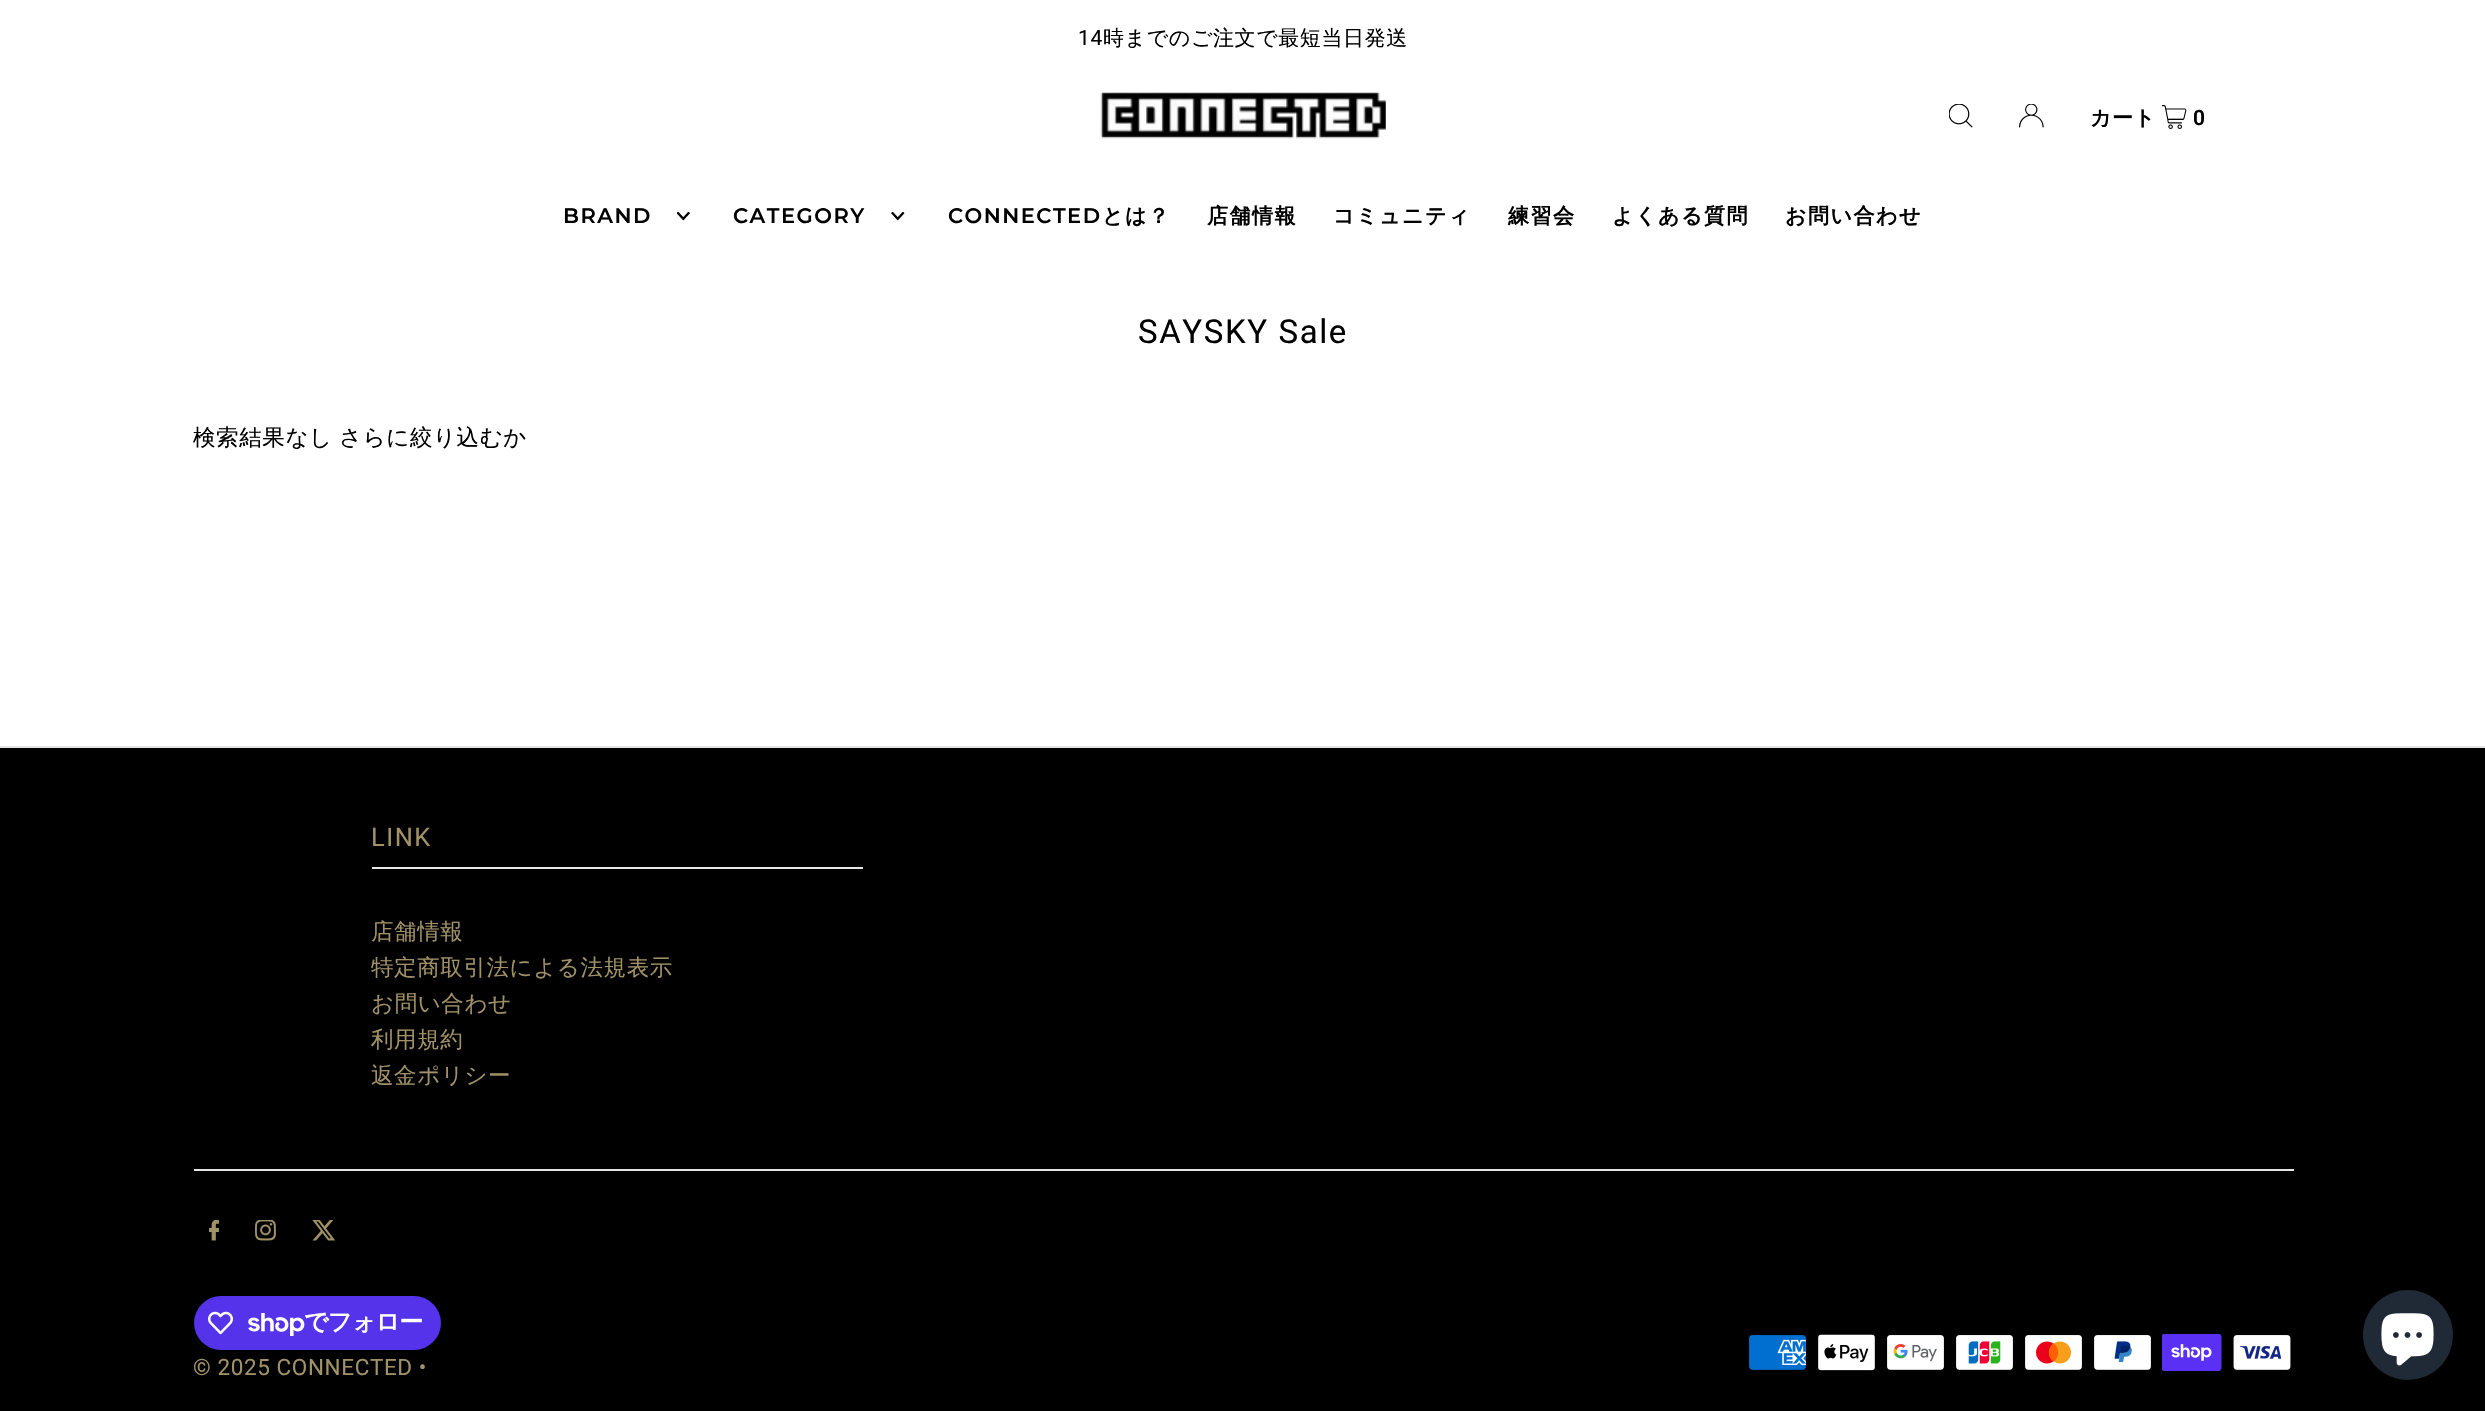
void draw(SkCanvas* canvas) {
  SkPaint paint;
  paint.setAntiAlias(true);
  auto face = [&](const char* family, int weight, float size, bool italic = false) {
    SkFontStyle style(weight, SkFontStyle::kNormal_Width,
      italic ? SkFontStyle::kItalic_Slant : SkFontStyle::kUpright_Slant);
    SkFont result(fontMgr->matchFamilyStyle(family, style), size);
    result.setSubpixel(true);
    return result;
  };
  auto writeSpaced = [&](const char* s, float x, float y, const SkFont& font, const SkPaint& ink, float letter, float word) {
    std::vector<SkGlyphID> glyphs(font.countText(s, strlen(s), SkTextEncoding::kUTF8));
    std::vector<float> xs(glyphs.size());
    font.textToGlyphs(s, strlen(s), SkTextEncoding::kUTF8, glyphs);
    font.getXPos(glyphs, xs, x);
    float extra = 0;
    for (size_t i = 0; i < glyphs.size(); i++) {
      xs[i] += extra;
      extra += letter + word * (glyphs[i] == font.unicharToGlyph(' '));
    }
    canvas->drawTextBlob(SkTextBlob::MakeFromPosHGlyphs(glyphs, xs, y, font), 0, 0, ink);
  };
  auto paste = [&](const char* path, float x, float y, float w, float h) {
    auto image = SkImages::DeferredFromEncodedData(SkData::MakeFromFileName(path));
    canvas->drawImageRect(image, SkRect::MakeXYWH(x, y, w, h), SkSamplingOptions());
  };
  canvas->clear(0xffffffff);
  paste("img/1.png", 1100, 92, 286, 47);
  paste("img/2.png", 1949, 104, 24, 24);
  paste("img/3.png", 2019, 104, 25, 24);
  paste("img/4.png", 2162, 105, 25, 24);
  paste("img/5.png", 677, 212, 13, 9);
  paste("img/6.png", 891, 212, 14, 9);
  {
    const struct { float x, y, w, h; SkColor color; } items[] = {
      {0, 748, 2485, 663, 0xff000000},
      {0, 746, 2485, 2, 0xffe5e5e5},
      {372, 867, 491, 2, 0xffe5e5e5},
      {194, 1169, 2100, 2, 0xffe5e5e5},
    };
    for (auto [x, y, w, h, color] : items) {
      paint.setColor(color);
      canvas->drawRect(SkRect::MakeXYWH(x, y, w, h), paint);
    }
  }
  paste("img/7.png", 209, 1220, 10, 21);
  paste("img/8.png", 255, 1220, 21, 21);
  paste("img/9.png", 312, 1220, 24, 21);
  paint.setColor(0xff5433eb);
  canvas->drawRoundRect(SkRect::MakeXYWH(194, 1296, 247, 54), 27, 27, paint);
  paste("img/10.png", 208, 1311, 25, 24);
  paste("img/11.png", 248, 1313, 57, 23);
  paste("img/12.png", 1749, 1335, 57, 35);
  paste("img/13.png", 1818, 1334, 57, 37);
  paste("img/14.png", 1887, 1335, 57, 35);
  paste("img/15.png", 1956, 1335, 57, 35);
  paste("img/16.png", 2025, 1335, 57, 35);
  paste("img/17.png", 2094, 1335, 57, 35);
  paste("img/18.png", 2162, 1334, 60, 37);
  paste("img/19.png", 2233, 1335, 58, 35);
  paint.setColor(0xff202a36);
  canvas->drawCircle(2408, 1335, 45, paint);
  paste("img/20.png", 2381, 1313, 53, 53);
  auto f0 = face("Roboto", 400, 21);
  paint.setColor(0xff000000);
  writeSpaced("14", 1078, 45, f0, paint, 0.6f, 0);
  auto f1 = face("WenQuanYi Zen Hei", 500, 21);
  writeSpaced("時までのご注文で最短当日発送", 1103, 45, f1, paint, 0.6f, 0);
  auto f2 = face("WenQuanYi Zen Hei", 700, 21);
  writeSpaced("カート", 2090, 125, f2, paint, 0.6f, 0);
  auto f3 = face("Roboto", 600, 21);
  writeSpaced("0", 2193, 125, f3, paint, 0.6f, 0);
  auto f4 = face("Montserrat", 600, 21);
  {
    const struct { const char* s; float x, y; } items[] = {
      {"BRAND", 563, 223},
      {"CATEGORY", 733, 223},
      {"CONNECTED", 948, 223},
    };
    for (auto [s, x, y] : items) {
      writeSpaced(s, x, y, f4, paint, 1.5f, 0);
    }
  }
  {
    const struct { const char* s; float x, y; } items[] = {
      {"とは？", 1102, 223},
      {"店舗情報", 1207, 223},
      {"コミュニティ", 1333, 223},
      {"練習会", 1508, 223},
      {"よくある質問", 1612, 223},
      {"お問い合わせ", 1785, 223},
    };
    for (auto [s, x, y] : items) {
      writeSpaced(s, x, y, f2, paint, 1.5f, 0);
    }
  }
  auto f5 = face("Roboto", 400, 33);
  writeSpaced("SAYSKY Sale", 1138, 343, f5, paint, 1.6f, 0);
  auto f6 = face("WenQuanYi Zen Hei", 500, 22.5f);
  writeSpaced("検索結果なし さらに絞り込むか", 193, 445, f6, paint, 0.6f, -1);
  auto f7 = face("Roboto", 400, 25.5f);
  paint.setColor(0xffa09167);
  writeSpaced("LINK", 371, 846, f7, paint, 1.5f, 0);
  {
    const struct { const char* s; float x, y; } items[] = {
      {"店舗情報", 371, 939},
      {"特定商取引法による法規表示", 371, 975},
      {"お問い合わせ", 371, 1011},
      {"利用規約", 371, 1047},
      {"返金ポリシー", 371, 1083},
    };
    for (auto [s, x, y] : items) {
      writeSpaced(s, x, y, f6, paint, 0.6f, 0);
    }
  }
  auto f8 = face("WenQuanYi Zen Hei", 700, 24);
  paint.setColor(0xffffffff);
  writeSpaced("でフォロー", 304, 1330, f8, paint, -0.75f, 0);
  auto f9 = face("Roboto", 400, 22.5f);
  paint.setColor(0xffa09167);
  writeSpaced("© 2025 CONNECTED •", 193, 1375, f9, paint, 0.6f, 0);
}
